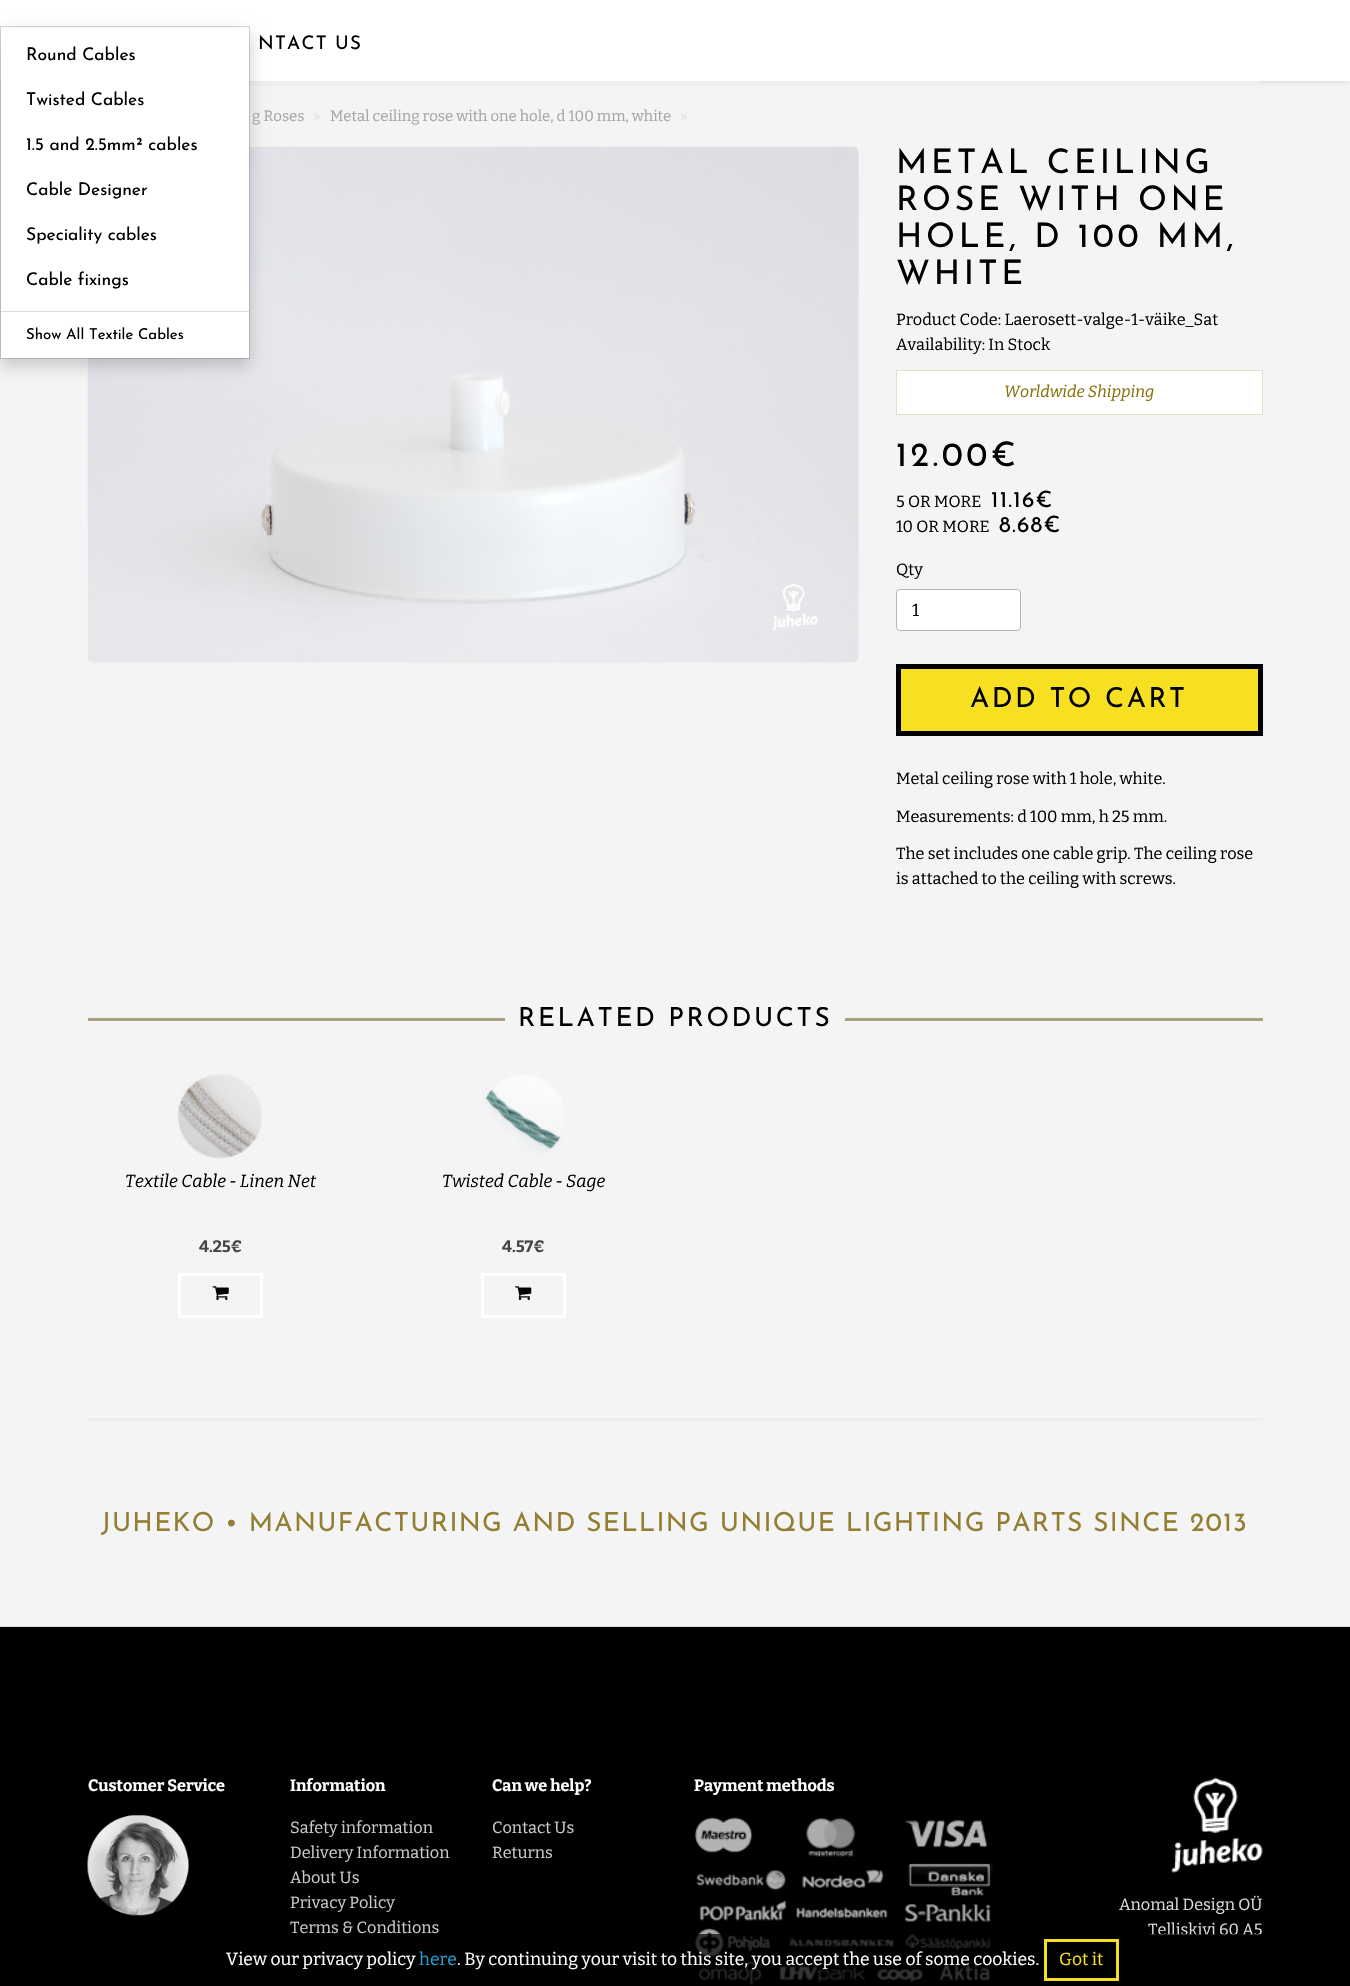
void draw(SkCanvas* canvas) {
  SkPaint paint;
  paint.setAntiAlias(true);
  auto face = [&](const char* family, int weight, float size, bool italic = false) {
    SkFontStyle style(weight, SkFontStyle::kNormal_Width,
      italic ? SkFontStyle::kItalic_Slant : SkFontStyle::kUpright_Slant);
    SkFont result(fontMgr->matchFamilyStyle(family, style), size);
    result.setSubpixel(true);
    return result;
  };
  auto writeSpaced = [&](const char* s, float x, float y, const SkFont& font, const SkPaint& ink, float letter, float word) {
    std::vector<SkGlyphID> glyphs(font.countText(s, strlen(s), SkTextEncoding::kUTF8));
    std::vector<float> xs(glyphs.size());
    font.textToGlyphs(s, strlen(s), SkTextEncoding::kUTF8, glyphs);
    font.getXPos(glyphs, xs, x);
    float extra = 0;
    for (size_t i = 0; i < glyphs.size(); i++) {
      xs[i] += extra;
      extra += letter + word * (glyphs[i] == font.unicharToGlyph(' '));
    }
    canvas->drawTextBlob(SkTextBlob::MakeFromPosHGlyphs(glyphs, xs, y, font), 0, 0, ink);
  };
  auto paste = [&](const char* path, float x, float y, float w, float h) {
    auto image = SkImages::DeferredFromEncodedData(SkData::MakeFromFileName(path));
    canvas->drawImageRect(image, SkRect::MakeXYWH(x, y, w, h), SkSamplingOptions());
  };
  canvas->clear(0xfff4f4f4);
  paint.setColor(0xffffffff);
  canvas->drawRoundRect(SkRect::MakeXYWH(88, -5, 1175, 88), 5, 5, paint);
  paint.setColor(0x87ababab);
  paint.setMaskFilter(SkMaskFilter::MakeBlur(kNormal_SkBlurStyle, 3));
  canvas->drawRect(SkRect::MakeXYWH(3, -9, 1345, 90), paint);
  paint.setMaskFilter(nullptr);
  paint.setColor(0xffffffff);
  canvas->drawRect(SkRect::MakeXYWH(0, 0, 1350, 81), paint);
  paste("img/1.png", 87, 146, 772, 517);
  paint.setColor(0x2e000000);
  paint.setMaskFilter(SkMaskFilter::MakeBlur(kNormal_SkBlurStyle, 7.5f));
  canvas->drawRect(SkRect::MakeXYWH(0, 34, 250, 332), paint);
  paint.setMaskFilter(nullptr);
  paint.setColor(0xffffffff);
  canvas->drawRect(SkRect::MakeXYWH(1, 28, 248, 330), paint);
  paint.setStroke(true);
  paint.setStrokeWidth(1);
  paint.setColor(0x26000000);
  canvas->drawRect(SkRect::MakeXYWH(0.5f, 26.5f, 249, 332), paint);
  paint.setStroke(false);
  paint.setColor(0xffdddddd);
  canvas->drawRect(SkRect::MakeXYWH(1, 311, 248, 1), paint);
  paint.setColor(0xffffffff);
  canvas->drawRect(SkRect::MakeXYWH(896.5f, 370.5f, 366, 44), paint);
  paint.setStroke(true);
  paint.setColor(0xffe5dfc5);
  canvas->drawRect(SkRect::MakeXYWH(896.5f, 370.5f, 366, 44), paint);
  paint.setStroke(false);
  paint.setColor(0xffffffff);
  canvas->drawRoundRect(SkRect::MakeXYWH(896.5f, 589.5f, 124, 41), 3.5f, 3.5f, paint);
  paint.setStroke(true);
  paint.setColor(0xffb5b5b5);
  canvas->drawRoundRect(SkRect::MakeXYWH(896.5f, 589.5f, 124, 41), 3.5f, 3.5f, paint);
  paint.setStroke(false);
  paint.setColor(0xfff7df21);
  canvas->drawRect(SkRect::MakeXYWH(898.5f, 666.5f, 362, 67), paint);
  paint.setStroke(true);
  paint.setStrokeWidth(5);
  paint.setColor(0xff000000);
  canvas->drawRect(SkRect::MakeXYWH(898.5f, 666.5f, 362, 67), paint);
  paint.setStroke(false);
  paint.setColor(0xffa89f7c);
  canvas->drawRect(SkRect::MakeXYWH(88, 1018, 417, 3), paint);
  canvas->drawRect(SkRect::MakeXYWH(845, 1018, 418, 3), paint);
  paste("img/2.png", 177, 1074, 85, 85);
  paint.setStroke(true);
  paint.setStrokeWidth(3);
  paint.setColor(0xffffffff);
  canvas->drawRect(SkRect::MakeXYWH(179.5f, 1274.5f, 82, 42), paint);
  paste("img/3.png", 212, 1286, 17, 14);
  paste("img/4.png", 484, 1075, 80, 80);
  canvas->drawRect(SkRect::MakeXYWH(482.5f, 1274.5f, 82, 42), paint);
  paste("img/5.png", 515, 1286, 17, 14);
  paint.setStroke(false);
  {
    const struct { float x, y, w, h; SkColor color; } items[] = {
      {88, 1418, 1175, 3, 0xffededed},
      {0, 1627, 1350, 359, 0xff000000},
      {0, 1626, 1350, 1, 0xffdddddd},
    };
    for (auto [x, y, w, h, color] : items) {
      paint.setColor(color);
      canvas->drawRect(SkRect::MakeXYWH(x, y, w, h), paint);
    }
  }
  paste("img/6.png", 87, 1815, 102, 101);
  paste("img/7.png", 694, 1817, 299, 169);
  paste("img/8.png", 1171, 1777, 92, 96);
  auto f0 = face("Josefin Sans", 100, 18.75f);
  paint.setColor(0xff000000);
  writeSpaced("NTACT US", 258, 49, f0, paint, 1.25f, 0);
  auto f1 = face("Josefin Sans", 100, 17.5f);
  {
    const struct { const char* s; float x, y; } items[] = {
      {"Round Cables", 26, 60},
      {"Twisted Cables", 26, 105},
      {"1.5 and 2.5mm² cables", 26, 150},
      {"Cable Designer", 26, 195},
      {"Speciality cables", 26, 240},
      {"Cable fixings", 26, 285},
    };
    for (auto [s, x, y] : items) {
      canvas->drawString(s, x, y, f1, paint);
    }
  }
  auto f2 = face("Josefin Sans", 100, 15);
  canvas->drawString("Show All Textile Cables", 26, 339, f2, paint);
  auto f3 = face("Bitter", 400, 15);
  paint.setColor(0xffa5a5a5);
  canvas->drawString("g Roses", 252, 121, f3, paint);
  paint.setColor(0xffdddddd);
  canvas->drawString("»", 313, 121, f3, paint);
  paint.setColor(0xffa5a5a5);
  canvas->drawString("Metal ceiling rose with one hole, d 100 mm, white", 330, 121, f3, paint);
  paint.setColor(0xffdddddd);
  canvas->drawString("»", 680, 121, f3, paint);
  auto f4 = face("Josefin Sans", 100, 33.75f);
  paint.setColor(0xff000000);
  {
    const struct { const char* s; float x, y; } items[] = {
      {"METAL CEILING", 896, 173},
      {"ROSE WITH ONE", 896, 210},
      {"HOLE, D 100 MM,", 896, 247},
      {"WHITE", 896, 284},
    };
    for (auto [s, x, y] : items) {
      writeSpaced(s, x, y, f4, paint, 3.75f, 0);
    }
  }
  auto f5 = face("Bitter", 400, 16.25f);
  canvas->drawString("Product Code: Laerosett-valge-1-väike_Sat", 896, 325, f5, paint);
  canvas->drawString("Availability: In Stock", 896, 350, f5, paint);
  auto f6 = face("Bitter", 100, 16.25f, true);
  paint.setColor(0xff896f09);
  canvas->drawString("Worldwide Shipping", 1004, 397, f6, paint);
  paint.setColor(0xff000000);
  writeSpaced("12.00€", 896, 466, f4, paint, 3.5f, 0);
  canvas->drawString("5 OR MORE", 896, 507, f5, paint);
  auto f7 = face("Josefin Sans", 100, 22.5f);
  writeSpaced("11.16€", 991, 507, f7, paint, 1.25f, 0);
  canvas->drawString("10 OR MORE", 896, 532, f5, paint);
  writeSpaced("8.68€", 999, 532, f7, paint, 1.25f, 0);
  canvas->drawString("Qty", 896, 575, f5, paint);
  auto f8 = face("Bitter", 400, 17.5f);
  canvas->drawString("1", 912, 616, f8, paint);
  auto f9 = face("Josefin Sans", 100, 27.5f);
  writeSpaced("ADD TO CART", 970, 707, f9, paint, 2.5f, 0);
  {
    const struct { const char* s; float x, y; } items[] = {
      {"Metal ceiling rose with 1 hole, white.", 896, 784},
      {"Measurements: d 100 mm, h 25 mm.", 896, 822},
      {"The set includes one cable grip. The ceiling rose", 896, 859},
      {"is attached to the ceiling with screws.", 896, 884},
    };
    for (auto [s, x, y] : items) {
      canvas->drawString(s, x, y, f5, paint);
    }
  }
  auto f10 = face("Josefin Sans", 100, 26.25f);
  writeSpaced("RELATED PRODUCTS", 518, 1026, f10, paint, 2.6f, 0);
  auto f11 = face("Bitter", 100, 17.5f, true);
  canvas->drawString("Textile Cable - Linen Net", 125, 1187, f11, paint);
  auto f12 = face("Bitter", 700, 16.25f);
  paint.setColor(0xff444444);
  canvas->drawString("4.25€", 199, 1252, f12, paint);
  paint.setColor(0xff000000);
  canvas->drawString("Twisted Cable - Sage", 442, 1187, f11, paint);
  paint.setColor(0xff444444);
  canvas->drawString("4.57€", 502, 1252, f12, paint);
  paint.setColor(0xff927f34);
  writeSpaced("JUHEKO • MANUFACTURING AND SELLING UNIQUE LIGHTING PARTS SINCE 2013", 101, 1531, f10, paint, 1.3f, 0);
  paint.setColor(0xffffffff);
  canvas->drawString("View our privacy policy", 226, 1965, f8, paint);
  paint.setColor(0xff23a1d1);
  canvas->drawString("here", 419, 1965, f8, paint);
  paint.setColor(0xffffffff);
  canvas->drawString("Customer Service", 88, 1791, f12, paint);
  canvas->drawString("Information", 290, 1791, f12, paint);
  paint.setColor(0xffcccccc);
  {
    const struct { const char* s; float x, y; } items[] = {
      {"Safety information", 290, 1833},
      {"Delivery Information", 290, 1858},
      {"About Us", 290, 1883},
      {"Privacy Policy", 290, 1908},
      {"Terms & Conditions", 290, 1933},
    };
    for (auto [s, x, y] : items) {
      canvas->drawString(s, x, y, f5, paint);
    }
  }
  paint.setColor(0xffffffff);
  canvas->drawString("Can we help?", 492, 1791, f12, paint);
  paint.setColor(0xffcccccc);
  canvas->drawString("Contact Us", 492, 1833, f5, paint);
  canvas->drawString("Returns", 492, 1858, f5, paint);
  paint.setColor(0xffffffff);
  canvas->drawString("Payment methods", 694, 1791, f12, paint);
  paint.setColor(0xffdddddd);
  canvas->drawString("Anomal Design OÜ", 1119, 1910, f5, paint);
  canvas->drawString("Telliskivi 60 A5", 1148, 1935, f5, paint);
  paint.setColor(0xb3000000);
  canvas->drawRect(SkRect::MakeXYWH(694, 1934, 567, 52), paint);
  paint.setStroke(true);
  paint.setColor(0xfff7df21);
  canvas->drawRect(SkRect::MakeXYWH(1045.5f, 1940.5f, 72, 39), paint);
  paint.setStroke(false);
  canvas->drawString("Got it", 1059, 1965, f8, paint);
  paint.setColor(0xffffffff);
  canvas->drawString(". By continuing your visit to this site, you accept the use of some cookies.", 457, 1965, f8, paint);
}
